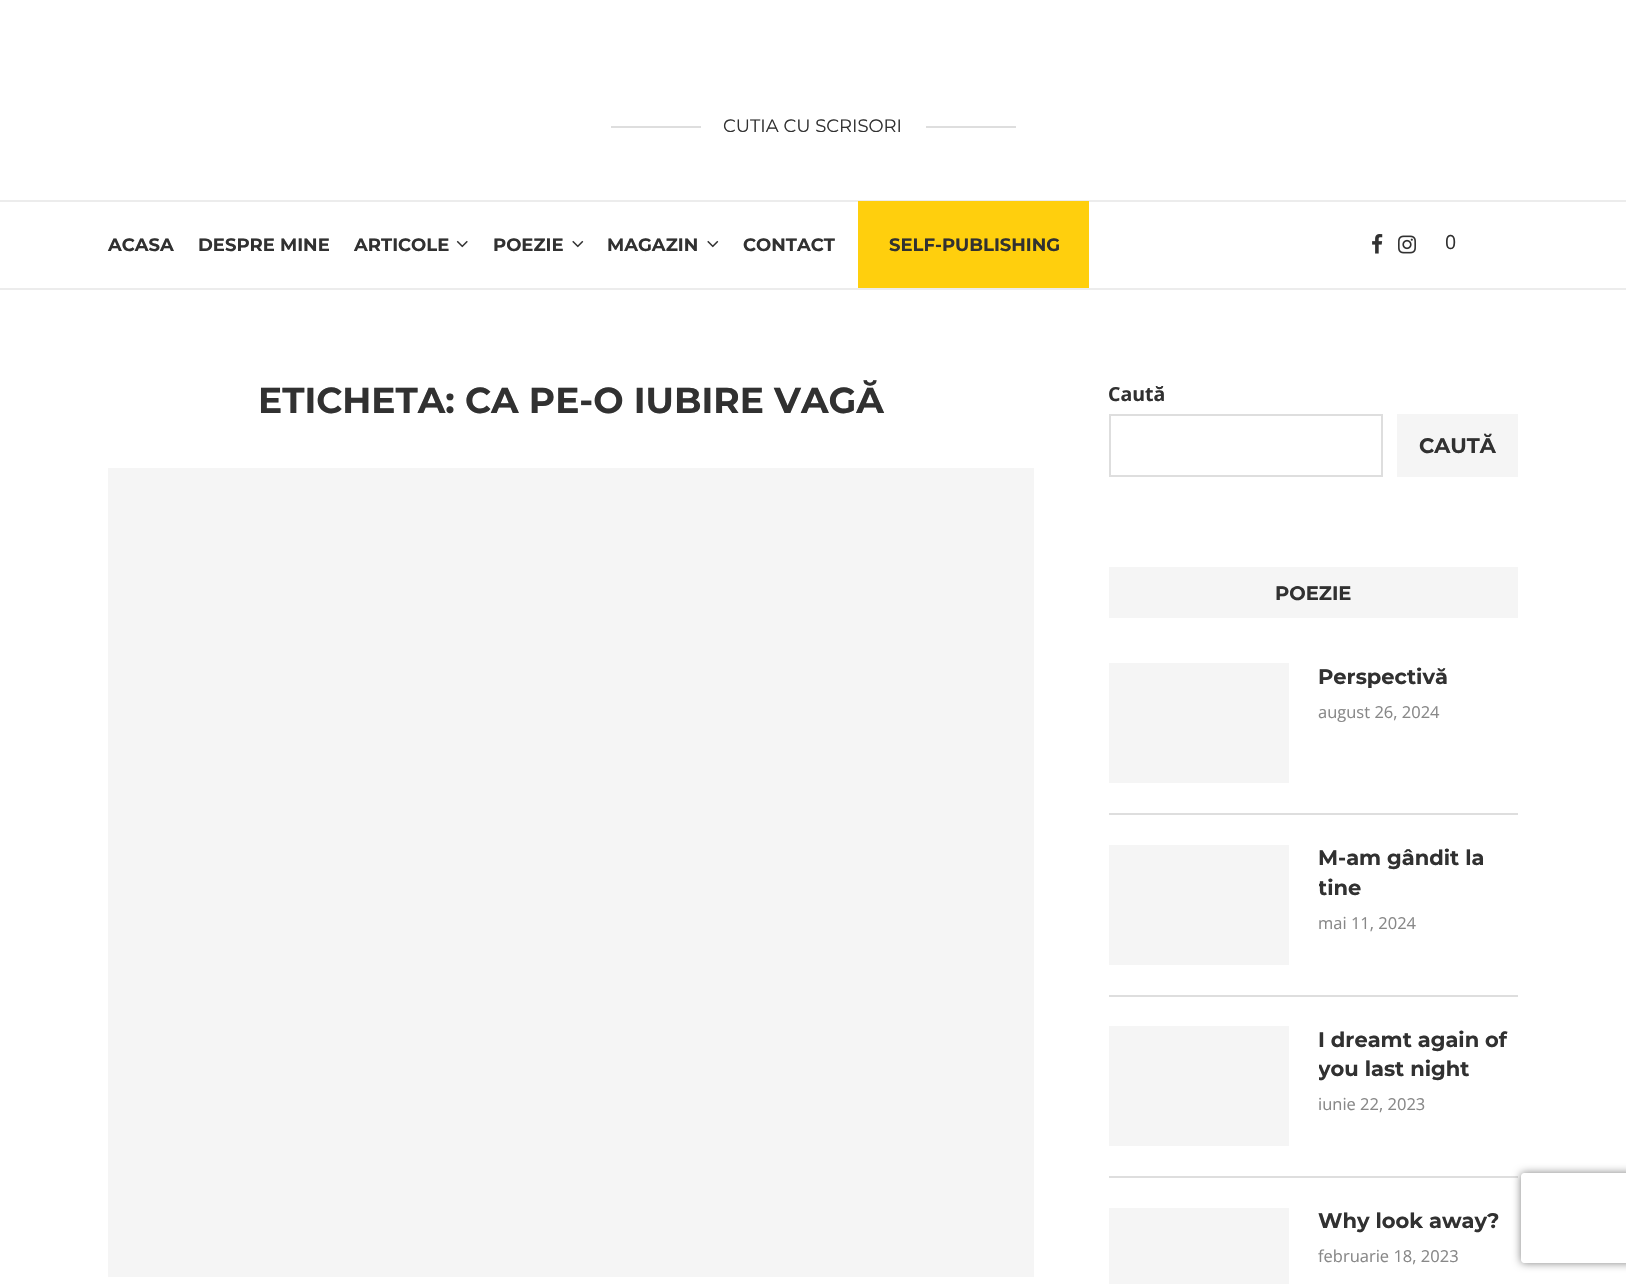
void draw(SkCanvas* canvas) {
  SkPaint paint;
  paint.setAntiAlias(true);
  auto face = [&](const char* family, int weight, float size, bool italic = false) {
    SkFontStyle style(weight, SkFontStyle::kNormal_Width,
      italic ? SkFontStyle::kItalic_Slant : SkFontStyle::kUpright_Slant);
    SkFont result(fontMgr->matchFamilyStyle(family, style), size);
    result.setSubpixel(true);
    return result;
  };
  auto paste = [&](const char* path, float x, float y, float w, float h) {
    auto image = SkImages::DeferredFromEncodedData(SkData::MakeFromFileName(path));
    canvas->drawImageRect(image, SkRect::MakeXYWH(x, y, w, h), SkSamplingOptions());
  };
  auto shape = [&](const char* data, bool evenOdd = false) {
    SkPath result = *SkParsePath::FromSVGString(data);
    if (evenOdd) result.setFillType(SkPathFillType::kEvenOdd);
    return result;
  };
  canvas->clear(0xffffffff);
  {
    const struct { float x, y, w, h; SkColor color; } items[] = {
      {611, 126, 90, 2, 0xffdedede},
      {926, 126, 90, 2, 0xffdedede},
      {0, 200, 1626, 2, 0xffececec},
      {0, 288, 1626, 2, 0xffececec},
    };
    for (auto [x, y, w, h, color] : items) {
      paint.setColor(color);
      canvas->drawRect(SkRect::MakeXYWH(x, y, w, h), paint);
    }
  }
  paste("img/1.png", 456, 240, 12, 8);
  paste("img/2.png", 572, 240, 12, 8);
  paste("img/2.png", 707, 240, 12, 8);
  paint.setColor(0xffffcf0d);
  canvas->drawRect(SkRect::MakeXYWH(858, 201, 231, 87), paint);
  paste("img/3.png", 1372, 234, 11, 20);
  paste("img/4.png", 1398, 235, 18, 19);
  paint.setColor(0xfff5f5f5);
  canvas->drawRect(SkRect::MakeXYWH(108, 468, 926, 809), paint);
  paint.setStroke(true);
  paint.setStrokeWidth(2);
  paint.setColor(0xffdedede);
  canvas->drawRect(SkRect::MakeXYWH(1110, 415, 272, 61), paint);
  paint.setStroke(false);
  {
    const struct { float x, y, w, h; SkColor color; } items[] = {
      {1397, 414, 121, 63, 0xfff5f5f5},
      {1109, 567, 409, 51, 0xfff5f5f5},
      {1109, 813, 409, 2, 0xffdedede},
      {1109, 663, 180, 120, 0xfff5f5f5},
      {1109, 995, 409, 2, 0xffdedede},
      {1109, 845, 180, 120, 0xfff5f5f5},
      {1109, 1176, 409, 2, 0xffdedede},
      {1109, 1026, 180, 120, 0xfff5f5f5},
      {1109, 1208, 180, 76, 0xfff5f5f5},
    };
    for (auto [x, y, w, h, color] : items) {
      paint.setColor(color);
      canvas->drawRect(SkRect::MakeXYWH(x, y, w, h), paint);
    }
  }
  canvas->save();
  canvas->clipPath(shape("M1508 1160H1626V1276H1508ZM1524 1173H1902C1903.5 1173 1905 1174.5 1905 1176V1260C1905 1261.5 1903.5 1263 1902 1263H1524C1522.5 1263 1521 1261.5 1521 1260V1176C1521 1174.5 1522.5 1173 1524 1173Z", true), true);
  paint.setColor(0xff808080);
  paint.setMaskFilter(SkMaskFilter::MakeBlur(kNormal_SkBlurStyle, 4));
  canvas->drawRoundRect(SkRect::MakeXYWH(1521, 1173, 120, 90), 3, 3, paint);
  paint.setMaskFilter(nullptr);
  canvas->restore();
  auto f0 = face("Montserrat", 400, 18);
  paint.setColor(0xff313131);
  canvas->drawString("CUTIA CU SCRISORI", 723, 132, f0, paint);
  auto f1 = face("Montserrat", 700, 18);
  {
    const struct { const char* s; float x, y; } items[] = {
      {"ACASA", 108, 251},
      {"DESPRE MINE", 198, 251},
      {"ARTICOLE", 354, 251},
      {"POEZIE", 493, 251},
      {"MAGAZIN", 607, 251},
      {"CONTACT", 743, 251},
      {"SELF-PUBLISHING", 889, 251},
    };
    for (auto [s, x, y] : items) {
      canvas->drawString(s, x, y, f1, paint);
    }
  }
  auto f2 = face("Open Sans", 400, 19.5f);
  canvas->drawString("0", 1445, 249, f2, paint);
  auto f3 = face("Montserrat", 700, 36);
  canvas->drawString("ETICHETA: CA PE-O IUBIRE VAGĂ", 258, 413, f3, paint);
  auto f4 = face("Open Sans", 700, 19.5f);
  canvas->drawString("Caută", 1108, 401, f4, paint);
  auto f5 = face("Montserrat", 700, 21);
  canvas->drawString("CAUTĂ", 1419, 453, f5, paint);
  auto f6 = face("Montserrat", 700, 19.5f);
  canvas->drawString("POEZIE", 1275, 600, f6, paint);
  canvas->drawString("Perspectivă", 1318, 684, f5, paint);
  auto f7 = face("Open Sans", 400, 16.5f);
  paint.setColor(0xff888888);
  canvas->drawString("august 26, 2024", 1318, 718, f7, paint);
  paint.setColor(0xff313131);
  canvas->drawString("M-am gândit la", 1318, 865, f5, paint);
  canvas->save();
  canvas->clipRect(SkRect::MakeXYWH(1319, 845, 199, 90));
  canvas->drawString("tine", 1318, 895, f5, paint);
  canvas->restore();
  paint.setColor(0xff888888);
  canvas->drawString("mai 11, 2024", 1318, 929, f7, paint);
  paint.setColor(0xff313131);
  canvas->drawString("I dreamt again of", 1318, 1047, f5, paint);
  canvas->save();
  canvas->clipRect(SkRect::MakeXYWH(1319, 1026, 199, 90));
  canvas->drawString("you last night", 1318, 1076, f5, paint);
  canvas->restore();
  paint.setColor(0xff888888);
  canvas->drawString("iunie 22, 2023", 1318, 1110, f7, paint);
  paint.setColor(0xff313131);
  canvas->drawString("Why look away?", 1318, 1228, f5, paint);
  paint.setColor(0xff888888);
  canvas->drawString("februarie 18, 2023", 1318, 1262, f7, paint);
}
